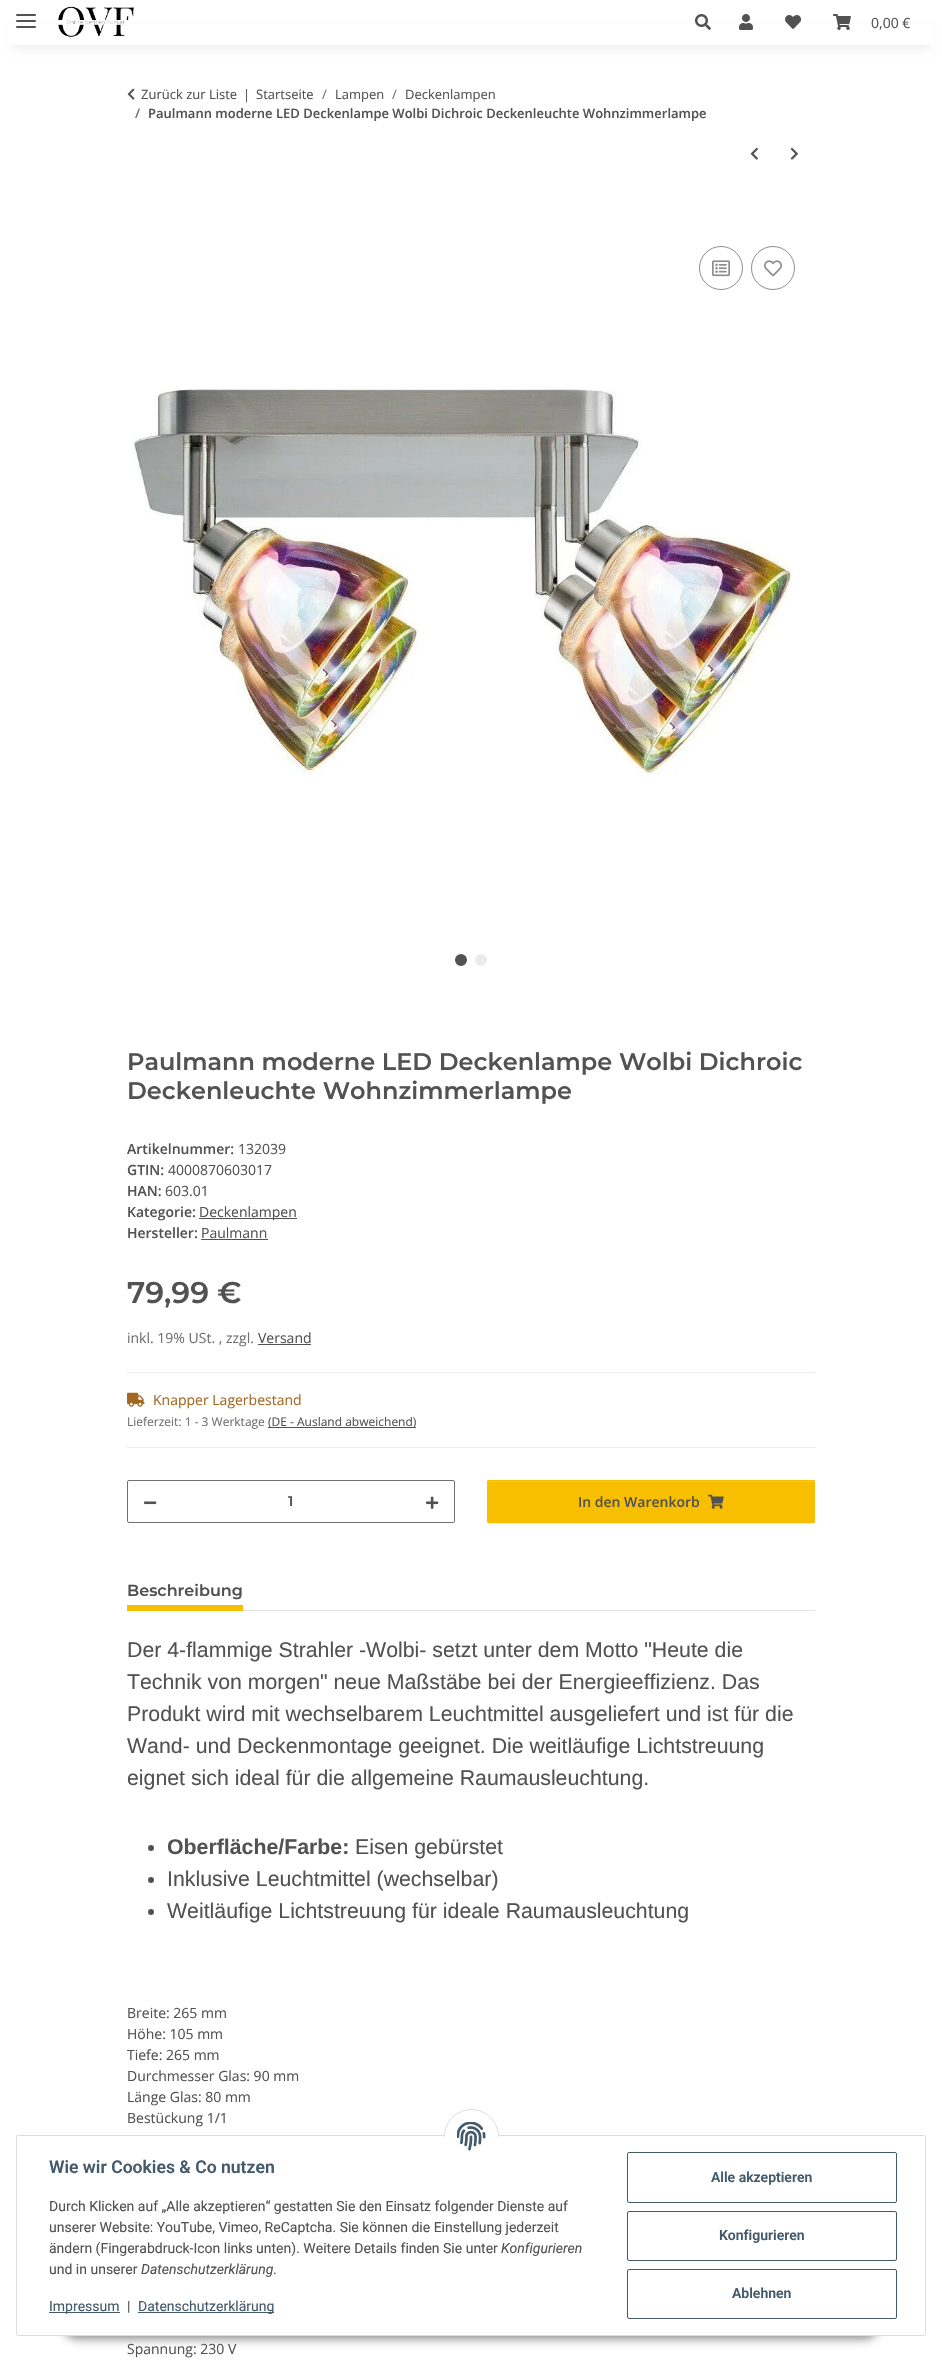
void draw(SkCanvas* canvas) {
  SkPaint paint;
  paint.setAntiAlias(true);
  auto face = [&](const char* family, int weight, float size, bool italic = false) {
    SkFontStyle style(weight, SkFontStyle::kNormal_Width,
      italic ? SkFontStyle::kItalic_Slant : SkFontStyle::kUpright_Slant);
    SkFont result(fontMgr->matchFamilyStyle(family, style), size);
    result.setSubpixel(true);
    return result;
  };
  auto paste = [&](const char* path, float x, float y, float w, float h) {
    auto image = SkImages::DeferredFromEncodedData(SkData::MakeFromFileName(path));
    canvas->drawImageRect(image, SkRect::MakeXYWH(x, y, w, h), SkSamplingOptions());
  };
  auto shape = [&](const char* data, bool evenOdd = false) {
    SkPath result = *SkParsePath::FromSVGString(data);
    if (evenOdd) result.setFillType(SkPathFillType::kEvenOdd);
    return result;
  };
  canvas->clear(0xffffffff);
  paint.setColor(0x0f000000);
  paint.setMaskFilter(SkMaskFilter::MakeBlur(kNormal_SkBlurStyle, 4.5f));
  canvas->drawRect(SkRect::MakeXYWH(12, 28, 918, 21), paint);
  paint.setMaskFilter(nullptr);
  paint.setColor(0xffffffff);
  canvas->drawRect(SkRect::MakeXYWH(8, 24, 926, 21), paint);
  paint.setColor(0xff525252);
  canvas->drawRoundRect(SkRect::MakeXYWH(16, 20, 20, 2), 1, 1, paint);
  canvas->drawRoundRect(SkRect::MakeXYWH(16, 14, 20, 2), 1, 1, paint);
  canvas->drawRoundRect(SkRect::MakeXYWH(16, 26, 20, 2), 1, 1, paint);
  paste("img/1.png", 58, 6, 76, 31);
  paste("img/2.png", 695, 14, 16, 16);
  paste("img/3.png", 739, 14, 14, 16);
  paste("img/4.png", 785, 15, 16, 14);
  paste("img/5.png", 833, 14, 18, 16);
  paste("img/6.png", 127, 88, 8, 12);
  paste("img/7.png", 750, 147, 8, 13);
  paste("img/8.png", 790, 147, 8, 13);
  paint.setStroke(true);
  paint.setStrokeWidth(1);
  paint.setColor(0xff8d8d8d);
  canvas->drawCircle(721, 268, 21.5f, paint);
  paste("img/9.png", 712, 260, 18, 17);
  canvas->drawCircle(773, 268, 21.5f, paint);
  paste("img/10.png", 764, 260, 18, 17);
  paste("img/11.png", 133, 389, 660, 385);
  paint.setStroke(false);
  paint.setColor(0xff525252);
  canvas->drawCircle(461, 960, 5, paint);
  paint.setStroke(true);
  paint.setStrokeWidth(2);
  canvas->drawCircle(461, 960, 5, paint);
  paint.setStroke(false);
  paint.setColor(0xffebebeb);
  canvas->drawCircle(481, 960, 5, paint);
  paint.setStroke(true);
  canvas->drawCircle(481, 960, 5, paint);
  paint.setStroke(false);
  {
    const struct { float x, y, w, h; SkColor color; } items[] = {
      {199, 1218, 98, 1, 0xff525252},
      {201, 1239, 67, 1, 0xff525252},
      {258, 1344, 53, 1, 0xff525252},
      {127, 1372, 688, 1, 0xffebebeb},
      {127, 1447, 688, 1, 0xffebebeb},
    };
    for (auto [x, y, w, h, color] : items) {
      paint.setColor(color);
      canvas->drawRect(SkRect::MakeXYWH(x, y, w, h), paint);
    }
  }
  paste("img/12.png", 127, 1392, 18, 15);
  paint.setColor(0xff525252);
  canvas->drawRect(SkRect::MakeXYWH(268, 1427, 148, 1), paint);
  paint.setStroke(true);
  paint.setStrokeWidth(1);
  paint.setColor(0xff707070);
  canvas->drawRoundRect(SkRect::MakeXYWH(127.5f, 1480.5f, 327, 42), 1.5f, 1.5f, paint);
  paste("img/13.png", 144, 1501, 13, 4);
  paste("img/14.png", 426, 1496, 13, 13);
  paint.setStroke(false);
  paint.setColor(0x12000000);
  paint.setMaskFilter(SkMaskFilter::MakeBlur(kNormal_SkBlurStyle, 0.5f));
  canvas->drawRoundRect(SkRect::MakeXYWH(487, 1481, 328, 43), 2, 2, paint);
  paint.setMaskFilter(nullptr);
  paint.setColor(0xfff8bf00);
  canvas->drawRoundRect(SkRect::MakeXYWH(487, 1480, 328, 43), 2, 2, paint);
  paint.setColor(0xfff9c926);
  canvas->drawPath(shape("M489 1482H813C814 1482 814 1482 814 1483C814 1482 814 1481 813 1481H489C488 1481 488 1482 488 1483C488 1482 488 1482 489 1482Z"), paint);
  paint.setStroke(true);
  paint.setColor(0xfff8bf00);
  canvas->drawRoundRect(SkRect::MakeXYWH(487.5f, 1480.5f, 327, 42), 1.5f, 1.5f, paint);
  paste("img/15.png", 708, 1494, 16, 15);
  paint.setStroke(false);
  paint.setColor(0xffdee2e6);
  canvas->drawRect(SkRect::MakeXYWH(243, 1610, 572, 1), paint);
  paint.setColor(0xfff8bf00);
  canvas->drawRect(SkRect::MakeXYWH(127, 1605, 116, 6), paint);
  paint.setColor(0xff525252);
  canvas->drawCircle(151, 1848, 3, paint);
  canvas->drawCircle(151, 1880, 3, paint);
  canvas->drawCircle(151, 1912, 3, paint);
  paint.setColor(0x73000000);
  paint.setMaskFilter(SkMaskFilter::MakeBlur(kNormal_SkBlurStyle, 5));
  canvas->drawRoundRect(SkRect::MakeXYWH(62, 2307, 818, 32), 16, 16, paint);
  paint.setMaskFilter(nullptr);
  paint.setColor(0xffffffff);
  canvas->drawRoundRect(SkRect::MakeXYWH(16.5f, 2135.5f, 909, 200), 1.5f, 1.5f, paint);
  paint.setStroke(true);
  paint.setColor(0xffdddddd);
  canvas->drawRoundRect(SkRect::MakeXYWH(16.5f, 2135.5f, 909, 200), 1.5f, 1.5f, paint);
  paint.setStroke(false);
  paint.setColor(0xffffffff);
  canvas->drawCircle(471.5f, 2136.5f, 27, paint);
  paint.setStroke(true);
  paint.setColor(0xffdddddd);
  canvas->drawCircle(471.5f, 2136.5f, 27, paint);
  paint.setStroke(false);
  paint.setColor(0xffffffff);
  canvas->drawRect(SkRect::MakeXYWH(444, 2137, 55, 27), paint);
  paste("img/16.png", 457, 2122, 29, 29);
  paint.setColor(0xff435a6b);
  canvas->drawRect(SkRect::MakeXYWH(49, 2312, 71, 1), paint);
  canvas->drawRect(SkRect::MakeXYWH(138, 2312, 136, 1), paint);
  paint.setStroke(true);
  canvas->drawRoundRect(SkRect::MakeXYWH(627.5f, 2152.5f, 269, 50), 1.5f, 1.5f, paint);
  canvas->drawRoundRect(SkRect::MakeXYWH(627.5f, 2211.5f, 269, 49), 1.5f, 1.5f, paint);
  canvas->drawRoundRect(SkRect::MakeXYWH(627.5f, 2269.5f, 269, 49), 1.5f, 1.5f, paint);
  auto f0 = face("Open Sans", 400, 14);
  paint.setStroke(false);
  paint.setColor(0xff525252);
  canvas->drawString("0,00 €", 871, 28, f0, paint);
  auto f1 = face("Open Sans", 400, 13);
  {
    const struct { const char* s; float x, y; } items[] = {
      {"Zurück zur Liste", 141, 99},
      {"|", 243, 99},
      {"Startseite", 256, 99},
    };
    for (auto [s, x, y] : items) {
      canvas->drawString(s, x, y, f1, paint);
    }
  }
  paint.setColor(0xff707070);
  canvas->drawString("/", 322, 99, f1, paint);
  paint.setColor(0xff525252);
  canvas->drawString("Lampen", 335, 99, f1, paint);
  paint.setColor(0xff707070);
  canvas->drawString("/", 392, 99, f1, paint);
  paint.setColor(0xff525252);
  canvas->drawString("Deckenlampen", 405, 99, f1, paint);
  auto f2 = face("Open Sans", 600, 13);
  paint.setColor(0xff707070);
  canvas->drawString("/", 135, 118, f2, paint);
  paint.setColor(0xff525252);
  canvas->drawString("Paulmann moderne LED Deckenlampe Wolbi Dichroic Deckenleuchte Wohnzimmerlampe", 148, 118, f2, paint);
  auto f3 = face("Montserrat", 600, 24);
  canvas->drawString("Paulmann moderne LED Deckenlampe Wolbi Dichroic", 127, 1070, f3, paint);
  canvas->drawString("Deckenleuchte Wohnzimmerlampe", 127, 1099, f3, paint);
  auto f4 = face("Open Sans", 600, 14);
  canvas->drawString("Artikelnummer:", 127, 1154, f4, paint);
  canvas->drawString("132039", 238, 1154, f0, paint);
  canvas->drawString("GTIN:", 127, 1175, f4, paint);
  canvas->drawString("4000870603017", 168, 1175, f0, paint);
  canvas->drawString("HAN:", 127, 1196, f4, paint);
  canvas->drawString("603.01", 165, 1196, f0, paint);
  canvas->drawString("Kategorie:", 127, 1217, f4, paint);
  canvas->drawString("Deckenlampen", 199, 1217, f0, paint);
  canvas->drawString("Hersteller:", 127, 1238, f4, paint);
  canvas->drawString("Paulmann", 201, 1238, f0, paint);
  auto f5 = face("Montserrat", 600, 30);
  canvas->drawString("79,99 €", 127, 1303, f5, paint);
  paint.setColor(0xff707070);
  canvas->drawString("inkl. 19% USt. , zzgl.", 127, 1343, f0, paint);
  paint.setColor(0xff525252);
  canvas->drawString("Versand", 258, 1343, f0, paint);
  paint.setColor(0xffa56823);
  canvas->drawString("Knapper Lagerbestand", 153, 1405, f0, paint);
  auto f6 = face("Open Sans", 400, 12);
  paint.setColor(0xff707070);
  canvas->drawString("Lieferzeit: 1 - 3 Werktage", 127, 1426, f6, paint);
  paint.setColor(0xff525252);
  canvas->drawString("(DE - Ausland abweichend)", 268, 1426, f6, paint);
  auto f7 = face("Montserrat", 600, 14);
  canvas->drawString("1", 288, 1506, f7, paint);
  canvas->drawString("In den Warenkorb", 578, 1507, f4, paint);
  auto f8 = face("Montserrat", 600, 16);
  canvas->drawString("Beschreibung", 127, 1596, f8, paint);
  auto f9 = face("Liberation Sans", 400, 21.3f);
  {
    const struct { const char* s; float x, y; } items[] = {
      {"Der 4-flammige Strahler -Wolbi- setzt unter dem Motto \"Heute die", 127, 1657},
      {"Technik von morgen\" neue Maßstäbe bei der Energieeffizienz. Das", 127, 1689},
      {"Produkt wird mit wechselbarem Leuchtmittel ausgeliefert und ist für die", 127, 1721},
      {"Wand- und Deckenmontage geeignet. Die weitläufige Lichtstreuung", 127, 1753},
      {"eignet sich ideal für die allgemeine Raumausleuchtung.", 127, 1785},
    };
    for (auto [s, x, y] : items) {
      canvas->drawString(s, x, y, f9, paint);
    }
  }
  auto f10 = face("Liberation Sans", 700, 21.3f);
  canvas->drawString("Oberfläche/Farbe:", 167, 1854, f10, paint);
  {
    const struct { const char* s; float x, y; } items[] = {
      {"Eisen gebürstet", 355, 1854},
      {"Inklusive Leuchtmittel (wechselbar)", 167, 1886},
      {"Weitläufige Lichtstreuung für ideale Raumausleuchtung", 167, 1918},
    };
    for (auto [s, x, y] : items) {
      canvas->drawString(s, x, y, f9, paint);
    }
  }
  {
    const struct { const char* s; float x, y; } items[] = {
      {"Breite: 265 mm", 127, 2018},
      {"Höhe: 105 mm", 127, 2039},
      {"Tiefe: 265 mm", 127, 2060},
      {"Durchmesser Glas: 90 mm", 127, 2081},
      {"Länge Glas: 80 mm", 127, 2102},
      {"Bestückung 1/1", 127, 2123},
      {"Spannung: 230 V", 127, 2354},
    };
    for (auto [s, x, y] : items) {
      canvas->drawString(s, x, y, f0, paint);
    }
  }
  auto f11 = face("Roboto", 600, 17.6f);
  paint.setColor(0xff435a6b);
  canvas->drawString("Wie wir Cookies & Co nutzen", 49, 2173, f11, paint);
  auto f12 = face("Roboto", 400, 14);
  paint.setColor(0xff525252);
  {
    const struct { const char* s; float x, y; } items[] = {
      {"Durch Klicken auf „Alle akzeptieren“ gestatten Sie den Einsatz folgender Dienste auf", 49, 2211},
      {"unserer Website: YouTube, Vimeo, ReCaptcha. Sie können die Einstellung jederzeit", 49, 2232},
      {"ändern (Fingerabdruck-Icon links unten). Weitere Details finden Sie unter", 49, 2253},
    };
    for (auto [s, x, y] : items) {
      canvas->drawString(s, x, y, f12, paint);
    }
  }
  auto f13 = face("Roboto", 400, 14, true);
  canvas->drawString("Konfigurieren", 501, 2253, f13, paint);
  canvas->drawString("und in unserer", 49, 2274, f12, paint);
  canvas->drawString("Datenschutzerklärung", 141, 2274, f13, paint);
  canvas->drawString(".", 273, 2274, f12, paint);
  paint.setColor(0xff435a6b);
  canvas->drawString("Impressum", 49, 2311, f12, paint);
  paint.setColor(0xff525252);
  canvas->drawString("|", 127, 2311, f12, paint);
  paint.setColor(0xff435a6b);
  canvas->drawString("Datenschutzerklärung", 138, 2311, f12, paint);
  auto f14 = face("Roboto", 600, 14);
  {
    const struct { const char* s; float x, y; } items[] = {
      {"Alle akzeptieren", 711, 2182},
      {"Konfigurieren", 719, 2240},
      {"Ablehnen", 732, 2298},
    };
    for (auto [s, x, y] : items) {
      canvas->drawString(s, x, y, f14, paint);
    }
  }
}
